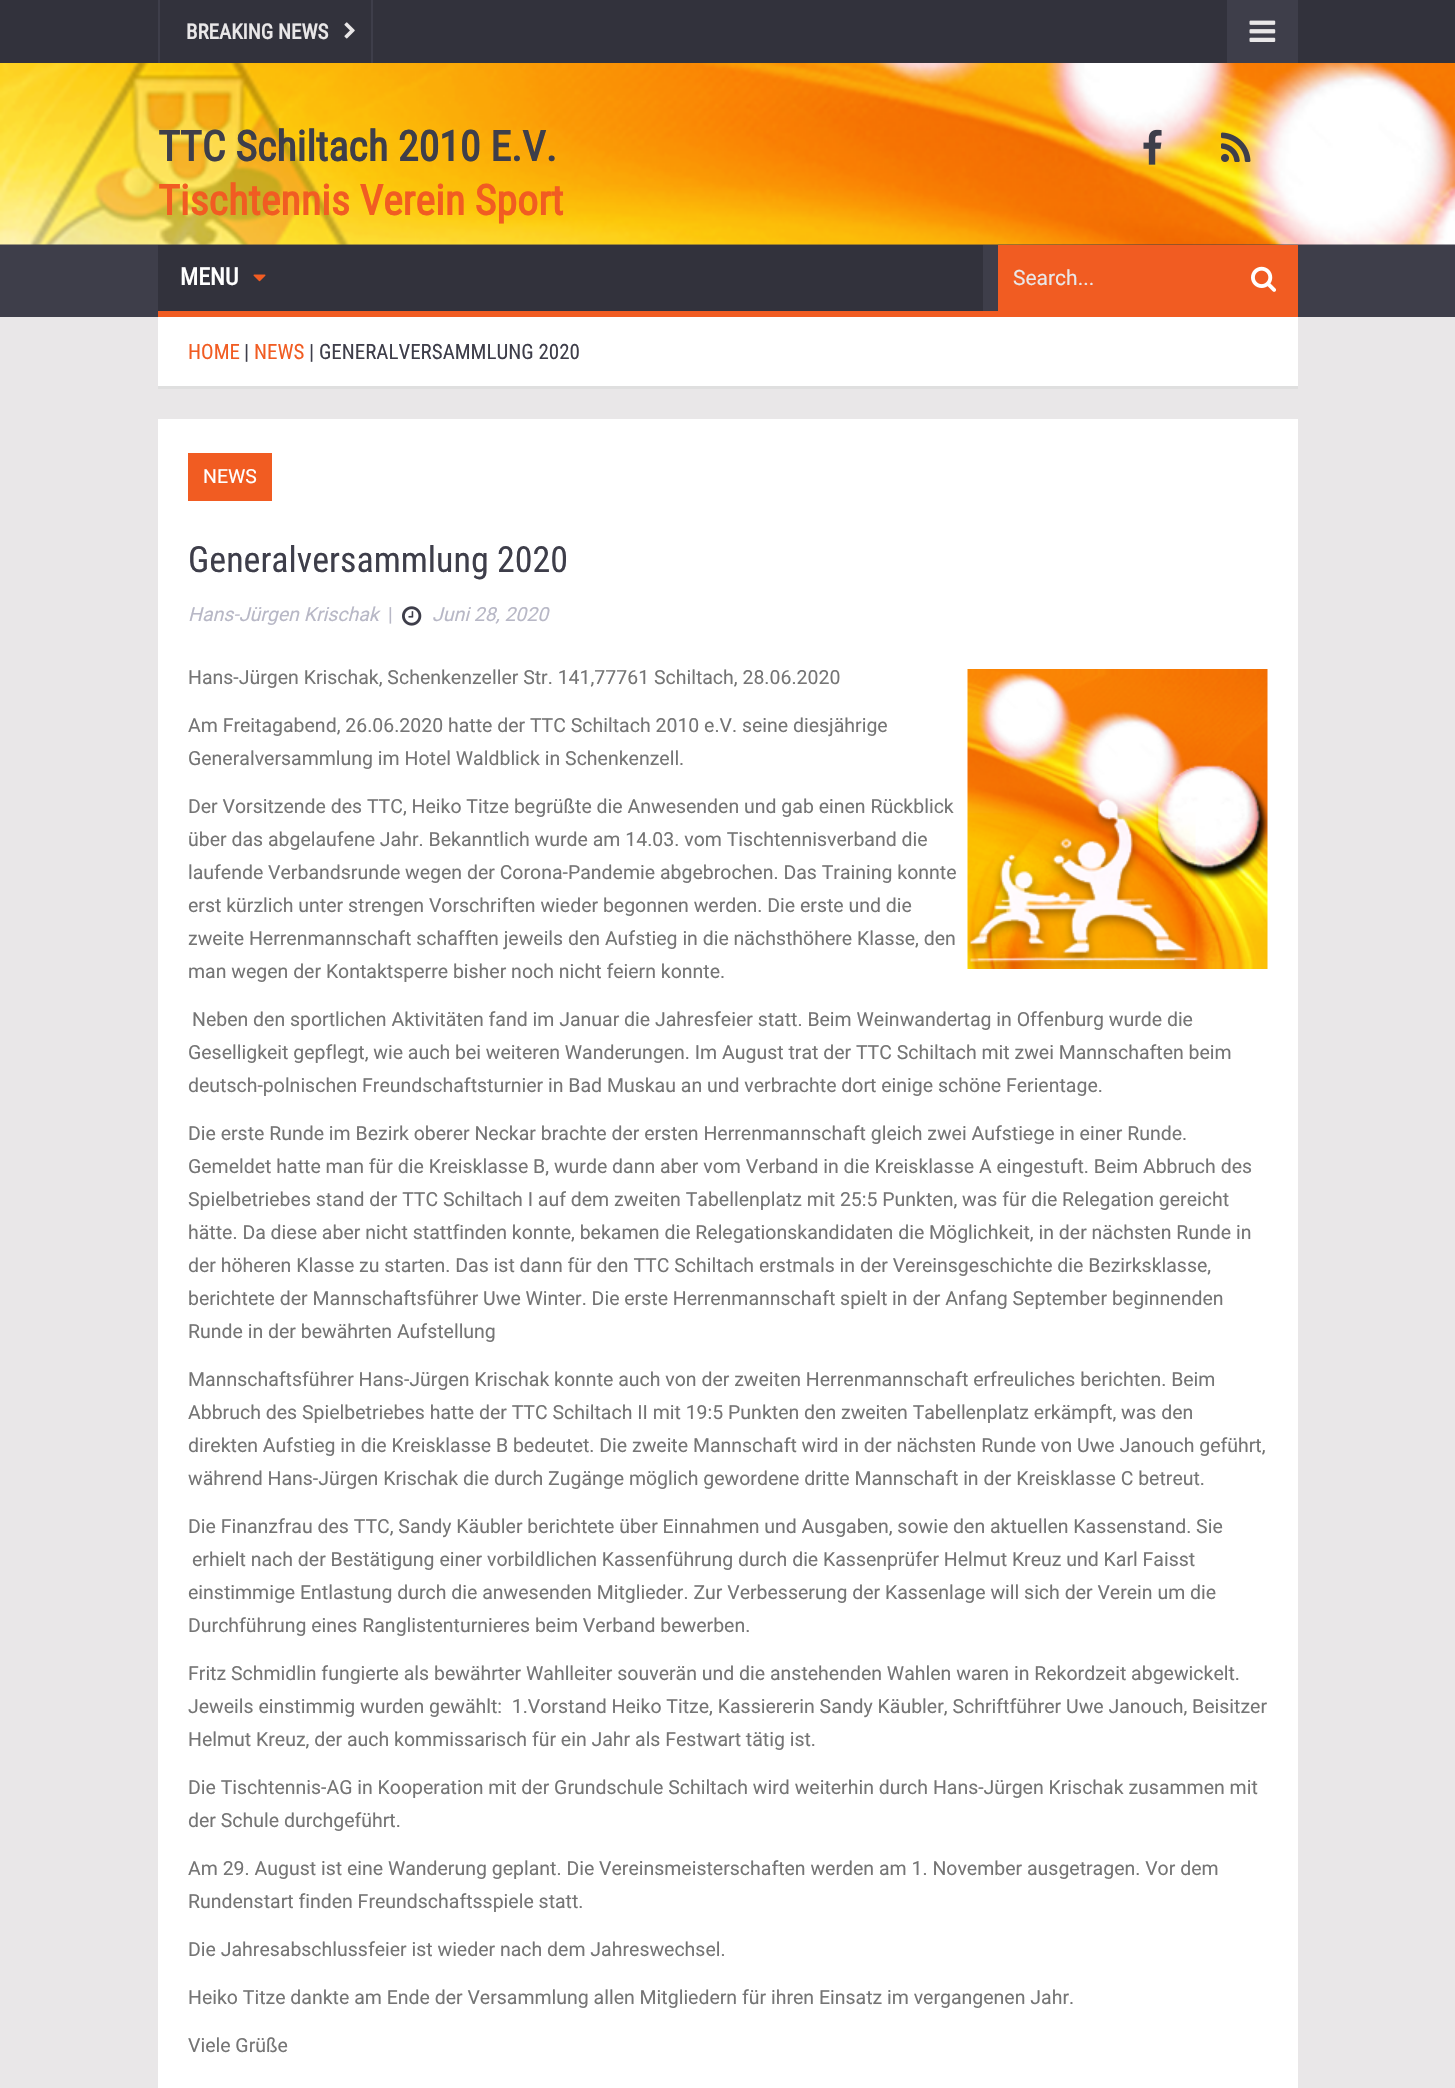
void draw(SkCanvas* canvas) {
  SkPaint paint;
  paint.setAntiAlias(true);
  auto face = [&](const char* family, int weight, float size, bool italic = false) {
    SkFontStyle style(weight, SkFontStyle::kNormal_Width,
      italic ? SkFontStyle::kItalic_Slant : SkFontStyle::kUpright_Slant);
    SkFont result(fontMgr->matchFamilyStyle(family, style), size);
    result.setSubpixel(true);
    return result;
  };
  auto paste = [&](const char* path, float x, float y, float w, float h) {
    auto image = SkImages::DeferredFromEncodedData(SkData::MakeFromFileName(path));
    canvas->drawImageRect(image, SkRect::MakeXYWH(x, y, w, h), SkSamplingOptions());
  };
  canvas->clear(0xffe9e7e8);
  {
    const struct { float x, y, w, h; SkColor color; } items[] = {
      {0, 244, 1455, 73, 0xff3e3e4a},
      {0, 0, 1455, 63, 0xff32323c},
      {371, 0, 2, 63, 0xff3e3e4a},
      {158, 0, 2, 63, 0xff3e3e4a},
    };
    for (auto [x, y, w, h, color] : items) {
      paint.setColor(color);
      canvas->drawRect(SkRect::MakeXYWH(x, y, w, h), paint);
    }
  }
  paste("img/1.png", 344, 22, 11, 17);
  canvas->drawRect(SkRect::MakeXYWH(1227, 0, 71, 63), paint);
  paste("img/2.png", 1249, 20, 27, 22);
  paste("img/3.png", 0, 63, 1455, 182);
  paste("img/4.png", 1143, 129, 19, 36);
  paste("img/5.png", 1221, 132, 30, 30);
  paint.setColor(0xff32323c);
  canvas->drawRect(SkRect::MakeXYWH(158, 245, 825, 66), paint);
  paint.setColor(0xfff15c22);
  canvas->drawRect(SkRect::MakeXYWH(158, 311, 1140, 6), paint);
  paste("img/6.png", 253, 274, 13, 8);
  canvas->drawRect(SkRect::MakeXYWH(998, 245, 300, 66), paint);
  paste("img/7.png", 1251, 266, 25, 26);
  {
    const struct { float x, y, w, h; SkColor color; } items[] = {
      {158, 317, 1140, 69, 0xffffffff},
      {158, 386, 1140, 3, 0xffdfdfdf},
      {158, 419, 1140, 1669, 0xffffffff},
      {188, 453, 84, 48, 0xfff15c22},
    };
    for (auto [x, y, w, h, color] : items) {
      paint.setColor(color);
      canvas->drawRect(SkRect::MakeXYWH(x, y, w, h), paint);
    }
  }
  paste("img/8.png", 402, 606, 20, 20);
  paste("img/9.png", 967, 669, 301, 300);
  auto f0 = face("Roboto Condensed", 700, 21);
  paint.setColor(0xffe9e7e8);
  canvas->drawString("BREAKING NEWS", 186, 39, f0, paint);
  auto f1 = face("Roboto Condensed", 700, 42);
  paint.setColor(0xff3e3e4a);
  canvas->drawString("TTC Schiltach 2010 E.V.", 158, 161, f1, paint);
  paint.setColor(0xfff15c22);
  canvas->drawString("Tischtennis Verein Sport", 158, 215, f1, paint);
  auto f2 = face("Roboto Condensed", 700, 24);
  paint.setColor(0xffffffff);
  canvas->drawString("MENU", 180, 285, f2, paint);
  auto f3 = face("Roboto", 400, 21);
  paint.setColor(0xffe9e7e8);
  canvas->drawString("Search...", 1013, 285, f3, paint);
  auto f4 = face("Roboto Condensed", 400, 21);
  paint.setColor(0xfff15c22);
  canvas->drawString("HOME", 188, 359, f4, paint);
  paint.setColor(0xff3e3e4a);
  canvas->drawString("|", 244, 359, f4, paint);
  paint.setColor(0xfff15c22);
  canvas->drawString("NEWS", 254, 359, f4, paint);
  paint.setColor(0xff3e3e4a);
  canvas->drawString("| GENERALVERSAMMLUNG 2020", 309, 359, f4, paint);
  auto f5 = face("Roboto", 400, 19.5f);
  paint.setColor(0xffffffff);
  canvas->drawString("NEWS", 203, 483, f5, paint);
  auto f6 = face("Roboto Condensed", 400, 36);
  paint.setColor(0xff3e3e4a);
  canvas->drawString("Generalversammlung 2020", 188, 572, f6, paint);
  auto f7 = face("Roboto", 400, 19.5f, true);
  paint.setColor(0xffb8b8c6);
  canvas->drawString("Hans-Jürgen Krischak", 188, 621, f7, paint);
  canvas->drawString("|", 388, 621, f5, paint);
  canvas->drawString("Juni 28, 2020", 432, 621, f7, paint);
  paint.setColor(0xff757575);
  {
    const struct { const char* s; float x, y; } items[] = {
      {"Hans-Jürgen Krischak, Schenkenzeller Str. 141,77761 Schiltach, 28.06.2020", 188, 684},
      {"Am Freitagabend, 26.06.2020 hatte der TTC Schiltach 2010 e.V. seine diesjährige", 188, 732},
      {"Generalversammlung im Hotel Waldblick in Schenkenzell.", 188, 765},
      {"Der Vorsitzende des TTC, Heiko Titze begrüßte die Anwesenden und gab einen Rückblick", 188, 813},
      {"über das abgelaufene Jahr. Bekanntlich wurde am 14.03. vom Tischtennisverband die", 188, 846},
      {"laufende Verbandsrunde wegen der Corona-Pandemie abgebrochen. Das Training konnte", 188, 879},
      {"erst kürzlich unter strengen Vorschriften wieder begonnen werden. Die erste und die", 188, 912},
      {"zweite Herrenmannschaft schafften jeweils den Aufstieg in die nächsthöhere Klasse, den", 188, 945},
      {"man wegen der Kontaktsperre bisher noch nicht feiern konnte.", 188, 978},
      {"Neben den sportlichen Aktivitäten fand im Januar die Jahresfeier statt. Beim Weinwandertag in Offenburg wurde die", 192, 1026},
      {"Geselligkeit gepflegt, wie auch bei weiteren Wanderungen. Im August trat der TTC Schiltach mit zwei Mannschaften beim", 188, 1059},
      {"deutsch-polnischen Freundschaftsturnier in Bad Muskau an und verbrachte dort einige schöne Ferientage.", 188, 1092},
      {"Die erste Runde im Bezirk oberer Neckar brachte der ersten Herrenmannschaft gleich zwei Aufstiege in einer Runde.", 188, 1140},
      {"Gemeldet hatte man für die Kreisklasse B, wurde dann aber vom Verband in die Kreisklasse A eingestuft. Beim Abbruch des", 188, 1173},
      {"Spielbetriebes stand der TTC Schiltach I auf dem zweiten Tabellenplatz mit 25:5 Punkten, was für die Relegation gereicht", 188, 1206},
      {"hätte. Da diese aber nicht stattfinden konnte, bekamen die Relegationskandidaten die Möglichkeit, in der nächsten Runde in", 188, 1239},
      {"der höheren Klasse zu starten. Das ist dann für den TTC Schiltach erstmals in der Vereinsgeschichte die Bezirksklasse,", 188, 1272},
      {"berichtete der Mannschaftsführer Uwe Winter. Die erste Herrenmannschaft spielt in der Anfang September beginnenden", 188, 1305},
      {"Runde in der bewährten Aufstellung", 188, 1338},
      {"Mannschaftsführer Hans-Jürgen Krischak konnte auch von der zweiten Herrenmannschaft erfreuliches berichten. Beim", 188, 1386},
      {"Abbruch des Spielbetriebes hatte der TTC Schiltach II mit 19:5 Punkten den zweiten Tabellenplatz erkämpft, was den", 188, 1419},
      {"direkten Aufstieg in die Kreisklasse B bedeutet. Die zweite Mannschaft wird in der nächsten Runde von Uwe Janouch geführt,", 188, 1452},
      {"während Hans-Jürgen Krischak die durch Zugänge möglich gewordene dritte Mannschaft in der Kreisklasse C betreut.", 188, 1485},
      {"Die Finanzfrau des TTC, Sandy Käubler berichtete über Einnahmen und Ausgaben, sowie den aktuellen Kassenstand. Sie", 188, 1533},
      {"erhielt nach der Bestätigung einer vorbildlichen Kassenführung durch die Kassenprüfer Helmut Kreuz und Karl Faisst", 192, 1566},
      {"einstimmige Entlastung durch die anwesenden Mitglieder. Zur Verbesserung der Kassenlage will sich der Verein um die", 188, 1599},
      {"Durchführung eines Ranglistenturnieres beim Verband bewerben.", 188, 1632},
      {"Fritz Schmidlin fungierte als bewährter Wahlleiter souverän und die anstehenden Wahlen waren in Rekordzeit abgewickelt.", 188, 1680},
      {"Jeweils einstimmig wurden gewählt:  1.Vorstand Heiko Titze, Kassiererin Sandy Käubler, Schriftführer Uwe Janouch, Beisitzer", 188, 1713},
      {"Helmut Kreuz, der auch kommissarisch für ein Jahr als Festwart tätig ist.", 188, 1746},
      {"Die Tischtennis-AG in Kooperation mit der Grundschule Schiltach wird weiterhin durch Hans-Jürgen Krischak zusammen mit", 188, 1794},
      {"der Schule durchgeführt.", 188, 1827},
      {"Am 29. August ist eine Wanderung geplant. Die Vereinsmeisterschaften werden am 1. November ausgetragen. Vor dem", 188, 1875},
      {"Rundenstart finden Freundschaftsspiele statt.", 188, 1908},
      {"Die Jahresabschlussfeier ist wieder nach dem Jahreswechsel.", 188, 1956},
      {"Heiko Titze dankte am Ende der Versammlung allen Mitgliedern für ihren Einsatz im vergangenen Jahr.", 188, 2004},
      {"Viele Grüße", 188, 2052},
    };
    for (auto [s, x, y] : items) {
      canvas->drawString(s, x, y, f5, paint);
    }
  }
}
